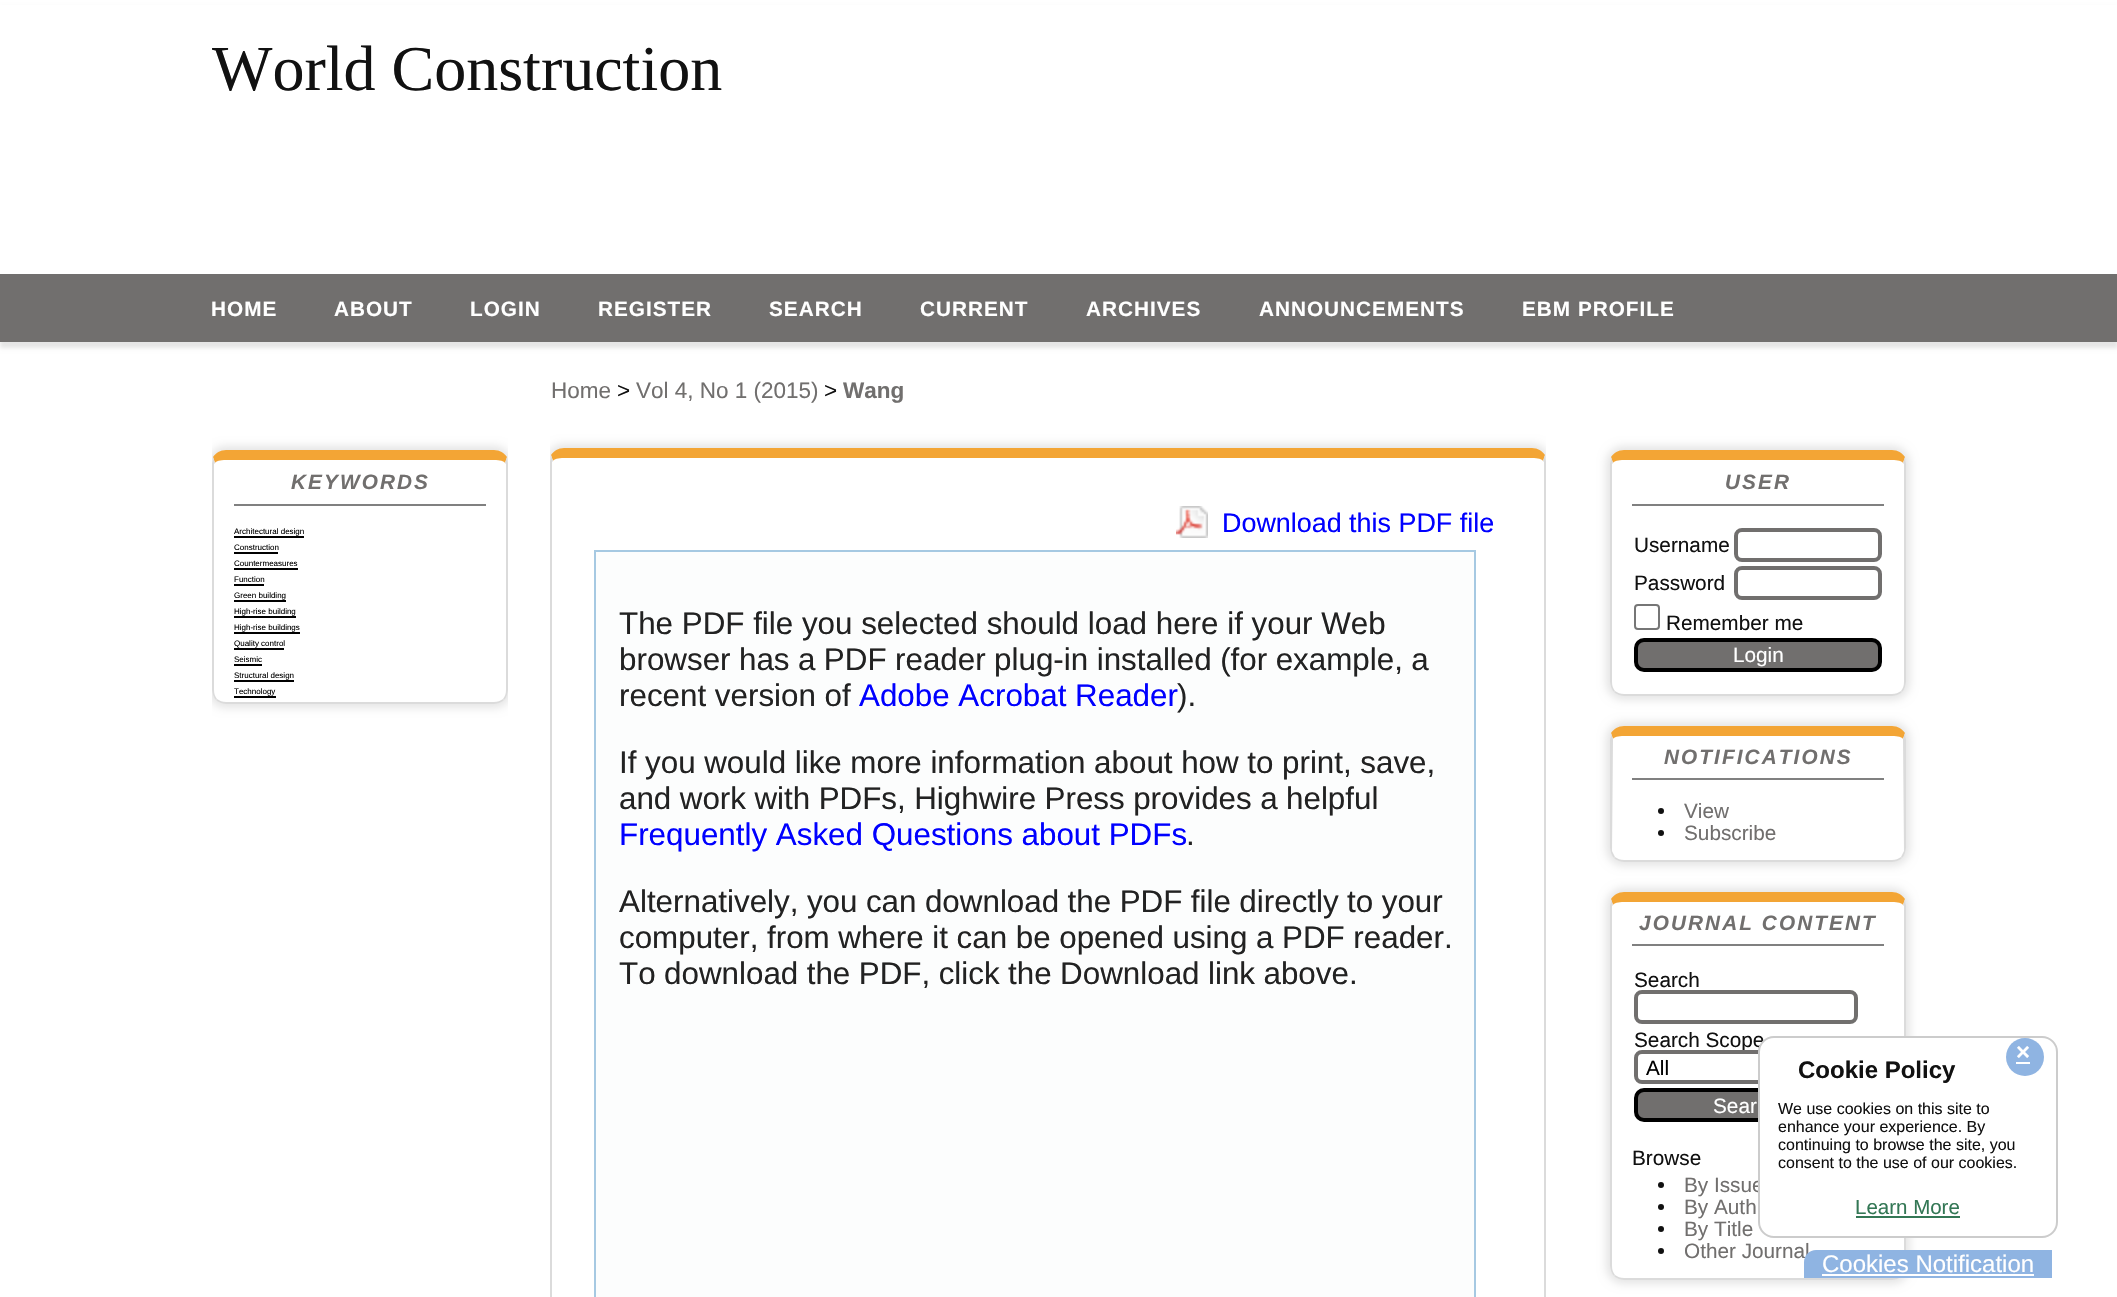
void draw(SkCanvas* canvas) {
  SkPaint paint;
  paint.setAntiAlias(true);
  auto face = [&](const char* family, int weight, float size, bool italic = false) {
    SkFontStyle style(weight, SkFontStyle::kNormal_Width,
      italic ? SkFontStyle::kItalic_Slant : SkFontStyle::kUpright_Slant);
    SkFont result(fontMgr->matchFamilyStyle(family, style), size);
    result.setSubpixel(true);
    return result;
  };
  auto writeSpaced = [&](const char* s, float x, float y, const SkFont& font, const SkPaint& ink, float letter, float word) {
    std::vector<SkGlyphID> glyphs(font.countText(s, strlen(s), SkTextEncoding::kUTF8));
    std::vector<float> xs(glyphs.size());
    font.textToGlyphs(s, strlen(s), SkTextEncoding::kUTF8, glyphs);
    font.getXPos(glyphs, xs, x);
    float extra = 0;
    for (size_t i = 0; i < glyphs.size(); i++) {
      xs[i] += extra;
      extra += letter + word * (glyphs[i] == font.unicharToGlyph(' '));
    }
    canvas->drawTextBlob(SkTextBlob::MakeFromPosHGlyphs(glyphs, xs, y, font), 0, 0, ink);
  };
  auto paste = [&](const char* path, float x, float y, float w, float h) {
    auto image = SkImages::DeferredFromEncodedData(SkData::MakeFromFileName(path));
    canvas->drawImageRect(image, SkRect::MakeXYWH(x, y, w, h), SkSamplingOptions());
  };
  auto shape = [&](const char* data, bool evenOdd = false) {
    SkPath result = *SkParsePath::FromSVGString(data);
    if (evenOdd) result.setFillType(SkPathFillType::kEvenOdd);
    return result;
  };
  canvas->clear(0xffffffff);
  paint.setColor(0x1a000000);
  paint.setMaskFilter(SkMaskFilter::MakeBlur(kNormal_SkBlurStyle, 2));
  canvas->drawRect(SkRect::MakeXYWH(0, 8, 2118, 340), paint);
  paint.setMaskFilter(nullptr);
  paint.setColor(0xffffffff);
  canvas->drawRect(SkRect::MakeXYWH(0, 5, 2117, 269), paint);
  paint.setColor(0xff716f6e);
  canvas->drawRect(SkRect::MakeXYWH(0, 274, 2117, 68), paint);
  canvas->save();
  canvas->clipRect(SkRect::MakeXYWH(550, 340, 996, 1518));
  canvas->clipPath(shape("M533 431H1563V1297H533ZM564 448H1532C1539.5 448 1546 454.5 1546 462V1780C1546 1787.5 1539.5 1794 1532 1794H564C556.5 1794 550 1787.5 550 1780V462C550 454.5 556.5 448 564 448Z", true), true);
  paint.setColor(0x1a000000);
  paint.setMaskFilter(SkMaskFilter::MakeBlur(kNormal_SkBlurStyle, 4));
  canvas->drawRoundRect(SkRect::MakeXYWH(546, 444, 1004, 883), 18, 18, paint);
  paint.setMaskFilter(nullptr);
  canvas->restore();
  paint.setColor(0xfff3a535);
  canvas->drawPath(shape("M564 448C558 448 554 451 551 455L553 461C554 459 558 458 564 458H1532C1538 458 1542 459 1543 461L1545 455C1542 451 1538 448 1532 448Z"), paint);
  paint.setColor(0xffdbdbdb);
  canvas->drawPath(shape("M1546 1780V462C1546 460 1545 457 1545 455L1543 461L1544 462V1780C1544 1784 1543 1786 1541 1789L1542 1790C1544 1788 1546 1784 1546 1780Z"), paint);
  canvas->drawPath(shape("M550 462V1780C550 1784 552 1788 554 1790L555 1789C553 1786 552 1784 552 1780V462L553 461L551 455C551 457 550 460 550 462Z"), paint);
  paste("img/1.png", 1176, 506, 32, 32);
  paint.setColor(0xfffcfdfd);
  canvas->drawRect(SkRect::MakeXYWH(595, 551, 880, 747), paint);
  paint.setStroke(true);
  paint.setStrokeWidth(2);
  paint.setColor(0xffa6c9e2);
  canvas->drawRect(SkRect::MakeXYWH(595, 551, 880, 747), paint);
  canvas->save();
  canvas->clipRect(SkRect::MakeXYWH(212, 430, 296, 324));
  canvas->clipPath(shape("M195 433H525V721H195ZM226 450H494C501.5 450 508 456.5 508 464V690C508 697.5 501.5 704 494 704H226C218.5 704 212 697.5 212 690V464C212 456.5 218.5 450 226 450Z", true), true);
  paint.setStroke(false);
  paint.setColor(0x1a000000);
  paint.setMaskFilter(SkMaskFilter::MakeBlur(kNormal_SkBlurStyle, 4));
  canvas->drawRoundRect(SkRect::MakeXYWH(208, 446, 304, 262), 18, 18, paint);
  paint.setMaskFilter(nullptr);
  canvas->restore();
  paint.setColor(0xfff3a535);
  canvas->drawPath(shape("M226 450C220 450 216 453 213 457L215 463C216 461 220 460 226 460H494C500 460 504 461 505 463L507 457C504 453 500 450 494 450Z"), paint);
  paint.setColor(0xffdbdbdb);
  canvas->drawPath(shape("M508 690V464C508 462 507 459 507 457L505 463L506 464V690C506 694 505 696 503 699L504 700C506 698 508 694 508 690Z"), paint);
  canvas->drawPath(shape("M226 704H494C498 704 502 702 504 700L503 699C500 701 498 702 494 702H226C222 702 220 701 217 699L216 700C218 702 222 704 226 704Z"), paint);
  canvas->drawPath(shape("M212 464V690C212 694 214 698 216 700L217 699C215 696 214 694 214 690V464L215 463L213 457C213 459 212 462 212 464Z"), paint);
  {
    const struct { float x, y, w, h; SkColor color; } items[] = {
      {234, 504, 252, 2, 0xff808080},
      {234, 536, 70, 2, 0xff000000},
      {234, 552, 44, 2, 0xff000000},
      {234, 568, 64, 2, 0xff000000},
      {234, 584, 30, 2, 0xff000000},
      {234, 600, 52, 2, 0xff000000},
      {234, 616, 62, 2, 0xff000000},
      {234, 632, 66, 2, 0xff000000},
      {234, 648, 50, 2, 0xff000000},
      {234, 664, 28, 2, 0xff000000},
      {234, 680, 60, 2, 0xff000000},
      {234, 696, 42, 2, 0xff000000},
    };
    for (auto [x, y, w, h, color] : items) {
      paint.setColor(color);
      canvas->drawRect(SkRect::MakeXYWH(x, y, w, h), paint);
    }
  }
  canvas->save();
  canvas->clipPath(shape("M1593 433H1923V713H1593ZM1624 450H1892C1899.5 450 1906 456.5 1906 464V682C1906 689.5 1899.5 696 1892 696H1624C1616.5 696 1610 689.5 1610 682V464C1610 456.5 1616.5 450 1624 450Z", true), true);
  paint.setColor(0x1a000000);
  paint.setMaskFilter(SkMaskFilter::MakeBlur(kNormal_SkBlurStyle, 4));
  canvas->drawRoundRect(SkRect::MakeXYWH(1606, 446, 304, 254), 18, 18, paint);
  paint.setMaskFilter(nullptr);
  canvas->restore();
  paint.setColor(0xfff3a535);
  canvas->drawPath(shape("M1624 450C1618 450 1614 453 1611 457L1613 463C1614 461 1618 460 1624 460H1892C1898 460 1902 461 1903 463L1905 457C1902 453 1898 450 1892 450Z"), paint);
  paint.setColor(0xffdbdbdb);
  canvas->drawPath(shape("M1906 682V464C1906 462 1905 459 1905 457L1903 463L1904 464V682C1904 686 1903 688 1901 691L1902 692C1904 690 1906 686 1906 682Z"), paint);
  canvas->drawPath(shape("M1624 696H1892C1896 696 1900 694 1902 692L1901 691C1898 693 1896 694 1892 694H1624C1620 694 1618 693 1615 691L1614 692C1616 694 1620 696 1624 696Z"), paint);
  canvas->drawPath(shape("M1610 464V682C1610 686 1612 690 1614 692L1615 691C1613 688 1612 686 1612 682V464L1613 463L1611 457C1611 459 1610 462 1610 464Z"), paint);
  paint.setColor(0xff808080);
  canvas->drawRect(SkRect::MakeXYWH(1632, 504, 252, 2), paint);
  paint.setStroke(true);
  paint.setStrokeWidth(4);
  paint.setColor(0xff716f6e);
  canvas->drawRoundRect(SkRect::MakeXYWH(1736, 530, 144, 30), 6, 6, paint);
  canvas->drawRoundRect(SkRect::MakeXYWH(1736, 568, 144, 30), 6, 6, paint);
  paint.setStrokeWidth(2);
  paint.setColor(0xff767676);
  canvas->drawRoundRect(SkRect::MakeXYWH(1635, 605, 24, 24), 3, 3, paint);
  paint.setStroke(false);
  paint.setColor(0xff716f6e);
  canvas->drawRoundRect(SkRect::MakeXYWH(1636, 640, 244, 30), 8, 8, paint);
  paint.setStroke(true);
  paint.setStrokeWidth(4);
  paint.setColor(0xff000000);
  canvas->drawRoundRect(SkRect::MakeXYWH(1636, 640, 244, 30), 8, 8, paint);
  canvas->save();
  canvas->clipPath(shape("M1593 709H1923V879H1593ZM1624 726H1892C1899.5 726 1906 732.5 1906 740V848C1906 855.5 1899.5 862 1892 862H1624C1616.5 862 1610 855.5 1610 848V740C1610 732.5 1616.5 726 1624 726Z", true), true);
  paint.setStroke(false);
  paint.setColor(0x1a000000);
  paint.setMaskFilter(SkMaskFilter::MakeBlur(kNormal_SkBlurStyle, 4));
  canvas->drawRoundRect(SkRect::MakeXYWH(1606, 722, 304, 144), 18, 18, paint);
  paint.setMaskFilter(nullptr);
  canvas->restore();
  paint.setColor(0xfff3a535);
  canvas->drawPath(shape("M1624 726C1618 726 1614 729 1611 733L1613 739C1614 737 1618 736 1624 736H1892C1898 736 1902 737 1903 739L1905 733C1902 729 1898 726 1892 726Z"), paint);
  paint.setColor(0xffdbdbdb);
  canvas->drawPath(shape("M1906 848V740C1906 738 1905 735 1905 733L1903 739L1904 851C1903 853 1902 855 1901 857L1902 858C1904 856 1906 852 1906 848Z"), paint);
  canvas->drawPath(shape("M1624 862H1892C1896 862 1900 860 1902 858L1901 857C1898 859 1896 860 1892 860H1624C1620 860 1618 859 1615 857L1614 858C1616 860 1620 862 1624 862Z"), paint);
  canvas->drawPath(shape("M1610 740V848C1610 852 1612 856 1614 858L1615 857C1614 855 1613 853 1612 851L1613 739L1611 733C1611 735 1610 738 1610 740Z"), paint);
  paint.setColor(0xff808080);
  canvas->drawRect(SkRect::MakeXYWH(1632, 778, 252, 2), paint);
  paint.setColor(0xff111111);
  canvas->drawCircle(1661, 811, 3, paint);
  canvas->drawCircle(1661, 833, 3, paint);
  canvas->save();
  canvas->clipPath(shape("M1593 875H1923V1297H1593ZM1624 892H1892C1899.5 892 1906 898.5 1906 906V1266C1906 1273.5 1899.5 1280 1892 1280H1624C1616.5 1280 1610 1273.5 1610 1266V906C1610 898.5 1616.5 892 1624 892Z", true), true);
  paint.setColor(0x1a000000);
  paint.setMaskFilter(SkMaskFilter::MakeBlur(kNormal_SkBlurStyle, 4));
  canvas->drawRoundRect(SkRect::MakeXYWH(1606, 888, 304, 396), 18, 18, paint);
  paint.setMaskFilter(nullptr);
  canvas->restore();
  paint.setColor(0xfff3a535);
  canvas->drawPath(shape("M1624 892C1618 892 1614 895 1611 899L1613 905C1614 903 1618 902 1624 902H1892C1898 902 1902 903 1903 905L1905 899C1902 895 1898 892 1892 892Z"), paint);
  paint.setColor(0xffdbdbdb);
  canvas->drawPath(shape("M1906 1266V906C1906 904 1905 901 1905 899L1903 905L1904 906V1266C1904 1270 1903 1272 1901 1275L1902 1276C1904 1274 1906 1270 1906 1266Z"), paint);
  canvas->drawPath(shape("M1624 1280H1892C1896 1280 1900 1278 1902 1276L1901 1275C1898 1277 1896 1278 1892 1278H1624C1620 1278 1618 1277 1615 1275L1614 1276C1616 1278 1620 1280 1624 1280Z"), paint);
  canvas->drawPath(shape("M1610 906V1266C1610 1270 1612 1274 1614 1276L1615 1275C1613 1272 1612 1270 1612 1266V906L1613 905L1611 899C1611 901 1610 904 1610 906Z"), paint);
  paint.setColor(0xff808080);
  canvas->drawRect(SkRect::MakeXYWH(1632, 944, 252, 2), paint);
  paint.setStroke(true);
  paint.setColor(0xff716f6e);
  canvas->drawRoundRect(SkRect::MakeXYWH(1636, 992, 220, 30), 6, 6, paint);
  paint.setStroke(false);
  canvas->drawRoundRect(SkRect::MakeXYWH(1636, 1090, 220, 30), 8, 8, paint);
  paint.setStroke(true);
  paint.setColor(0xff000000);
  canvas->drawRoundRect(SkRect::MakeXYWH(1636, 1090, 220, 30), 8, 8, paint);
  paint.setStroke(false);
  paint.setColor(0xff111111);
  canvas->drawCircle(1661, 1185, 3, paint);
  canvas->drawCircle(1661, 1207, 3, paint);
  canvas->drawCircle(1661, 1229, 3, paint);
  canvas->drawCircle(1661, 1251, 3, paint);
  auto f0 = face("Liberation Serif", 400, 64);
  canvas->drawString("World Construction", 212, 90, f0, paint);
  auto f1 = face("Liberation Sans", 700, 20.75f);
  paint.setColor(0xffffffff);
  {
    const struct { const char* s; float x, y; } items[] = {
      {"HOME", 211, 316},
      {"ABOUT", 334, 316},
      {"LOGIN", 470, 316},
      {"REGISTER", 598, 316},
      {"SEARCH", 769, 316},
      {"CURRENT", 920, 316},
      {"ARCHIVES", 1086, 316},
      {"ANNOUNCEMENTS", 1259, 316},
      {"EBM PROFILE", 1522, 316},
    };
    for (auto [s, x, y] : items) {
      writeSpaced(s, x, y, f1, paint, 1, 0);
    }
  }
  auto f2 = face("Liberation Sans", 400, 22.5f);
  paint.setColor(0xff716f6e);
  canvas->drawString("Home", 551, 398, f2, paint);
  paint.setColor(0xff111111);
  canvas->drawString(">", 617, 398, f2, paint);
  paint.setColor(0xff716f6e);
  canvas->drawString("Vol 4, No 1 (2015)", 636, 398, f2, paint);
  paint.setColor(0xff111111);
  canvas->drawString(">", 824, 398, f2, paint);
  auto f3 = face("Liberation Sans", 700, 22.5f);
  paint.setColor(0xff716f6e);
  canvas->drawString("Wang", 843, 398, f3, paint);
  auto f4 = face("Liberation Sans", 400, 26.9f);
  paint.setColor(0xff0000ff);
  canvas->drawString("Download this PDF file", 1222, 532, f4, paint);
  auto f5 = face("Liberation Sans", 400, 31.35f);
  paint.setColor(0xff222222);
  canvas->drawString("The PDF file you selected should load here if your Web", 619, 634, f5, paint);
  writeSpaced("browser has a PDF reader plug-in installed (for example, a", 619, 670, f5, paint, 0, -0.25f);
  canvas->drawString("recent version of", 619, 706, f5, paint);
  paint.setColor(0xff0000ff);
  canvas->drawString("Adobe Acrobat Reader", 859, 706, f5, paint);
  paint.setColor(0xff222222);
  canvas->drawString(").", 1177, 706, f5, paint);
  writeSpaced("If you would like more information about how to print, save,", 619, 773, f5, paint, 0, -0.1f);
  writeSpaced("and work with PDFs, Highwire Press provides a helpful", 619, 809, f5, paint, 0, -0.25f);
  paint.setColor(0xff0000ff);
  canvas->drawString("Frequently Asked Questions about PDFs", 619, 845, f5, paint);
  paint.setColor(0xff222222);
  canvas->drawString(".", 1186, 845, f5, paint);
  writeSpaced("Alternatively, you can download the PDF file directly to your", 619, 912, f5, paint, 0, -0.25f);
  writeSpaced("computer, from where it can be opened using a PDF reader.", 619, 948, f5, paint, 0, -0.1f);
  writeSpaced("To download the PDF, click the Download link above.", 619, 984, f5, paint, 0, -0.25f);
  auto f6 = face("Liberation Sans", 700, 20.75f, true);
  paint.setColor(0xff716f6e);
  writeSpaced("KEYWORDS", 291, 489, f6, paint, 2.1f, 0);
  auto f7 = face("Liberation Sans", 400, 8);
  paint.setColor(0xff000000);
  {
    const struct { const char* s; float x, y; } items[] = {
      {"Architectural design", 234, 534},
      {"Construction", 234, 550},
      {"Countermeasures", 234, 566},
      {"Function", 234, 582},
      {"Green building", 234, 598},
      {"High-rise building", 234, 614},
      {"High-rise buildings", 234, 630},
      {"Quality control", 234, 646},
      {"Seismic", 234, 662},
      {"Structural design", 234, 678},
      {"Technology", 234, 694},
    };
    for (auto [s, x, y] : items) {
      canvas->drawString(s, x, y, f7, paint);
    }
  }
  paint.setColor(0xff716f6e);
  writeSpaced("USER", 1725, 489, f6, paint, 2.1f, 0);
  auto f8 = face("Liberation Sans", 400, 20.75f);
  paint.setColor(0xff111111);
  {
    const struct { const char* s; float x, y; } items[] = {
      {"Username", 1634, 552},
      {"Password", 1634, 590},
      {"Remember me", 1666, 630},
    };
    for (auto [s, x, y] : items) {
      canvas->drawString(s, x, y, f8, paint);
    }
  }
  paint.setColor(0xffffffff);
  canvas->drawString("Login", 1733, 662, f8, paint);
  paint.setColor(0xff716f6e);
  writeSpaced("NOTIFICATIONS", 1664, 764, f6, paint, 2.1f, 0);
  canvas->drawString("View", 1684, 818, f8, paint);
  canvas->drawString("Subscribe", 1684, 840, f8, paint);
  writeSpaced("JOURNAL CONTENT", 1639, 930, f6, paint, 2.1f, 0);
  paint.setColor(0xff111111);
  canvas->drawString("Search", 1634, 987, f8, paint);
  canvas->drawString("Search Scope", 1634, 1047, f8, paint);
  paint.setColor(0xffffffff);
  canvas->drawRoundRect(SkRect::MakeXYWH(1636, 1052, 154, 30), 6, 6, paint);
  paint.setStroke(true);
  paint.setColor(0xff716f6e);
  canvas->drawRoundRect(SkRect::MakeXYWH(1636, 1052, 154, 30), 6, 6, paint);
  paint.setStroke(false);
  paint.setColor(0xff000000);
  canvas->drawString("All", 1646, 1075, f8, paint);
  paint.setColor(0xffffffff);
  canvas->drawString("Sear", 1713, 1113, f8, paint);
  paint.setColor(0xff111111);
  canvas->drawString("Browse", 1632, 1165, f8, paint);
  paint.setColor(0xff716f6e);
  {
    const struct { const char* s; float x, y; } items[] = {
      {"By Issue", 1684, 1192},
      {"By Auth", 1684, 1214},
      {"By Title", 1684, 1236},
      {"Other Journal", 1684, 1258},
    };
    for (auto [s, x, y] : items) {
      canvas->drawString(s, x, y, f8, paint);
    }
  }
  paint.setColor(0xffffffff);
  canvas->drawRoundRect(SkRect::MakeXYWH(1759, 1037, 298, 200), 15, 15, paint);
  paint.setStroke(true);
  paint.setStrokeWidth(2);
  paint.setColor(0xffcccccc);
  canvas->drawRoundRect(SkRect::MakeXYWH(1759, 1037, 298, 200), 15, 15, paint);
  paint.setStroke(false);
  paint.setColor(0xff8fb4e2);
  canvas->drawCircle(2025, 1057, 19, paint);
  auto f9 = face("Liberation Sans", 700, 24);
  paint.setColor(0xffffffff);
  canvas->drawString("×", 2016, 1060, f9, paint);
  canvas->drawRect(SkRect::MakeXYWH(2016, 1062, 14, 2), paint);
  paint.setColor(0xff111111);
  canvas->drawString("Cookie Policy", 1798, 1078, f9, paint);
  auto f10 = face("Liberation Sans", 400, 16);
  {
    const struct { const char* s; float x, y; } items[] = {
      {"We use cookies on this site to", 1778, 1114},
      {"enhance your experience. By", 1778, 1132},
      {"continuing to browse the site, you", 1778, 1150},
      {"consent to the use of our cookies.", 1778, 1168},
    };
    for (auto [s, x, y] : items) {
      canvas->drawString(s, x, y, f10, paint);
    }
  }
  auto f11 = face("Liberation Sans", 400, 20.5f);
  paint.setColor(0xff337755);
  canvas->drawString("Learn More", 1855, 1214, f11, paint);
  canvas->drawRect(SkRect::MakeXYWH(1856, 1216, 104, 2), paint);
  paint.setColor(0xff8fb4e2);
  canvas->drawPath(shape("M1816 1250H2052V1278H1804V1262C1804 1255.5 1809.5 1250 1816 1250Z"), paint);
  auto f12 = face("Liberation Sans", 400, 24);
  paint.setColor(0xffffffff);
  canvas->drawString("Cookies Notification", 1822, 1272, f12, paint);
  canvas->drawRect(SkRect::MakeXYWH(1822, 1274, 212, 2), paint);
}
